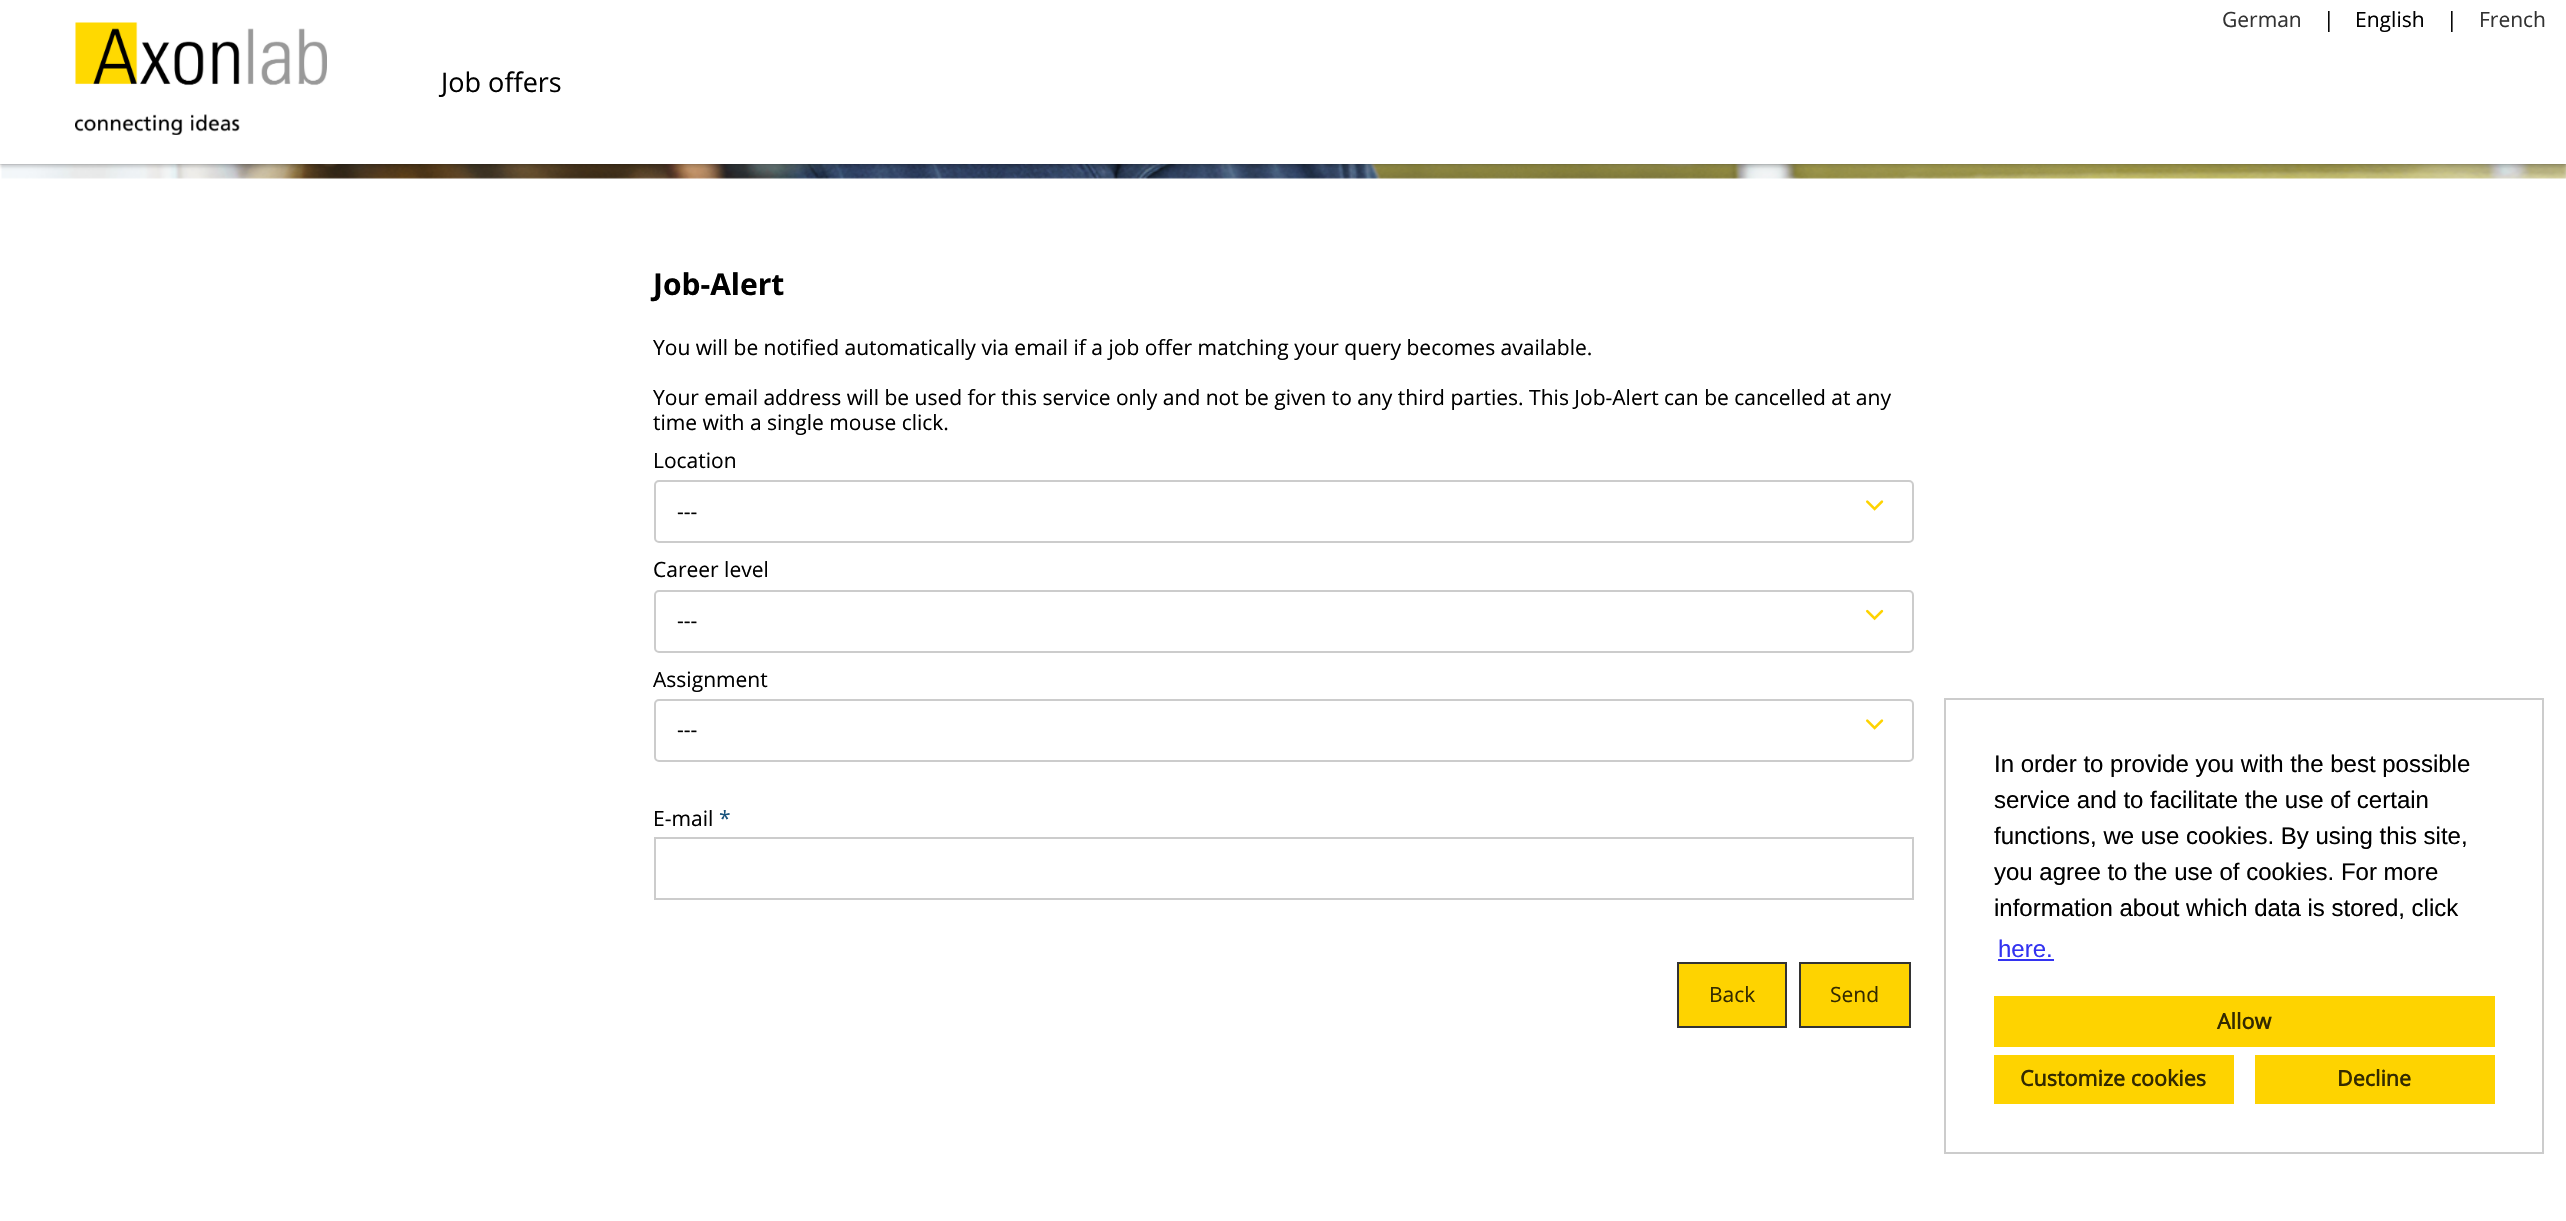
void draw(SkCanvas* canvas) {
  SkPaint paint;
  paint.setAntiAlias(true);
  auto face = [&](const char* family, int weight, float size, bool italic = false) {
    SkFontStyle style(weight, SkFontStyle::kNormal_Width,
      italic ? SkFontStyle::kItalic_Slant : SkFontStyle::kUpright_Slant);
    SkFont result(fontMgr->matchFamilyStyle(family, style), size);
    result.setSubpixel(true);
    return result;
  };
  auto paste = [&](const char* path, float x, float y, float w, float h) {
    auto image = SkImages::DeferredFromEncodedData(SkData::MakeFromFileName(path));
    canvas->drawImageRect(image, SkRect::MakeXYWH(x, y, w, h), SkSamplingOptions());
  };
  canvas->clear(0xffffffff);
  paste("img/2.png", 1, 164, 2565, 15);
  paint.setStroke(true);
  paint.setStrokeWidth(2);
  paint.setColor(0x14000000);
  canvas->drawRect(SkRect::MakeXYWH(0, 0, 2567, 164), paint);
  paint.setStroke(false);
  paint.setColor(0x29000000);
  paint.setMaskFilter(SkMaskFilter::MakeBlur(kNormal_SkBlurStyle, 1.5f));
  canvas->drawRect(SkRect::MakeXYWH(0, 3, 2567, 164), paint);
  paint.setMaskFilter(nullptr);
  paint.setColor(0xffffffff);
  canvas->drawRect(SkRect::MakeXYWH(0, 0, 2566, 164), paint);
  paste("img/1.png", 75, 22, 252, 113);
  paint.setStroke(true);
  paint.setColor(0xffcccccc);
  canvas->drawRoundRect(SkRect::MakeXYWH(655, 481, 1258, 61), 4, 4, paint);
  paste("img/3.png", 1866, 500, 18, 11);
  canvas->drawRoundRect(SkRect::MakeXYWH(655, 591, 1258, 61), 4, 4, paint);
  paste("img/4.png", 1866, 609, 18, 12);
  canvas->drawRoundRect(SkRect::MakeXYWH(655, 700, 1258, 61), 4, 4, paint);
  paste("img/3.png", 1866, 719, 18, 11);
  canvas->drawRect(SkRect::MakeXYWH(655, 838, 1258, 61), paint);
  paint.setStroke(false);
  paint.setColor(0xfffed300);
  canvas->drawRect(SkRect::MakeXYWH(1678, 963, 108, 64), paint);
  paint.setStroke(true);
  paint.setColor(0xff333333);
  canvas->drawRect(SkRect::MakeXYWH(1678, 963, 108, 64), paint);
  paint.setStroke(false);
  paint.setColor(0xfffed300);
  canvas->drawRect(SkRect::MakeXYWH(1800, 963, 110, 64), paint);
  paint.setStroke(true);
  paint.setColor(0xff333333);
  canvas->drawRect(SkRect::MakeXYWH(1800, 963, 110, 64), paint);
  paint.setColor(0xffcccccc);
  canvas->drawRect(SkRect::MakeXYWH(1945, 699, 598, 454), paint);
  paint.setStroke(false);
  {
    const struct { float x, y, w, h; SkColor color; } items[] = {
      {1998, 959, 56, 2, 0xff3333f1},
      {1994, 996, 501, 51, 0xfffed300},
      {1994, 1055, 240, 49, 0xfffed300},
      {2255, 1055, 240, 49, 0xfffed300},
    };
    for (auto [x, y, w, h, color] : items) {
      paint.setColor(color);
      canvas->drawRect(SkRect::MakeXYWH(x, y, w, h), paint);
    }
  }
  auto f0 = face("Open Sans", 400, 21);
  paint.setColor(0xff333333);
  canvas->drawString("German", 2222, 27, f0, paint);
  paint.setColor(0xff000000);
  {
    const struct { const char* s; float x, y; } items[] = {
      {"|", 2323, 27},
      {"English", 2355, 27},
      {"|", 2446, 27},
    };
    for (auto [s, x, y] : items) {
      canvas->drawString(s, x, y, f0, paint);
    }
  }
  paint.setColor(0xff333333);
  canvas->drawString("French", 2479, 27, f0, paint);
  auto f1 = face("Open Sans", 400, 27);
  paint.setColor(0xff000000);
  canvas->drawString("Job offers", 441, 92, f1, paint);
  auto f2 = face("Open Sans", 700, 30);
  canvas->drawString("Job-Alert", 653, 295, f2, paint);
  {
    const struct { const char* s; float x, y; } items[] = {
      {"You will be notified automatically via email if a job offer matching your query becomes available.", 653, 355},
      {"Your email address will be used for this service only and not be given to any third parties. This Job-Alert can be cancelled at any", 653, 405},
      {"time with a single mouse click.", 653, 430},
      {"Location", 653, 468},
      {"---", 677, 519},
      {"Career level", 653, 577},
      {"---", 677, 628},
      {"Assignment", 653, 687},
      {"---", 677, 737},
      {"E-mail", 653, 826},
    };
    for (auto [s, x, y] : items) {
      canvas->drawString(s, x, y, f0, paint);
    }
  }
  paint.setColor(0xff18537d);
  canvas->drawString("*", 719, 826, f0, paint);
  paint.setColor(0xff332a00);
  canvas->drawString("Back", 1709, 1002, f0, paint);
  canvas->drawString("Send", 1830, 1002, f0, paint);
  auto f3 = face("Liberation Sans", 400, 24);
  paint.setColor(0xff000000);
  {
    const struct { const char* s; float x, y; } items[] = {
      {"In order to provide you with the best possible", 1994, 772},
      {"service and to facilitate the use of certain", 1994, 808},
      {"functions, we use cookies. By using this site,", 1994, 844},
      {"you agree to the use of cookies. For more", 1994, 880},
      {"information about which data is stored, click", 1994, 916},
    };
    for (auto [s, x, y] : items) {
      canvas->drawString(s, x, y, f3, paint);
    }
  }
  paint.setColor(0xff3333f1);
  canvas->drawString("here.", 1998, 957, f3, paint);
  auto f4 = face("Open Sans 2", 700, 21.5f);
  paint.setColor(0xff332a00);
  {
    const struct { const char* s; float x, y; } items[] = {
      {"Allow", 2217, 1029},
      {"Customize cookies", 2020, 1086},
      {"Decline", 2337, 1086},
    };
    for (auto [s, x, y] : items) {
      canvas->drawString(s, x, y, f4, paint);
    }
  }
}
